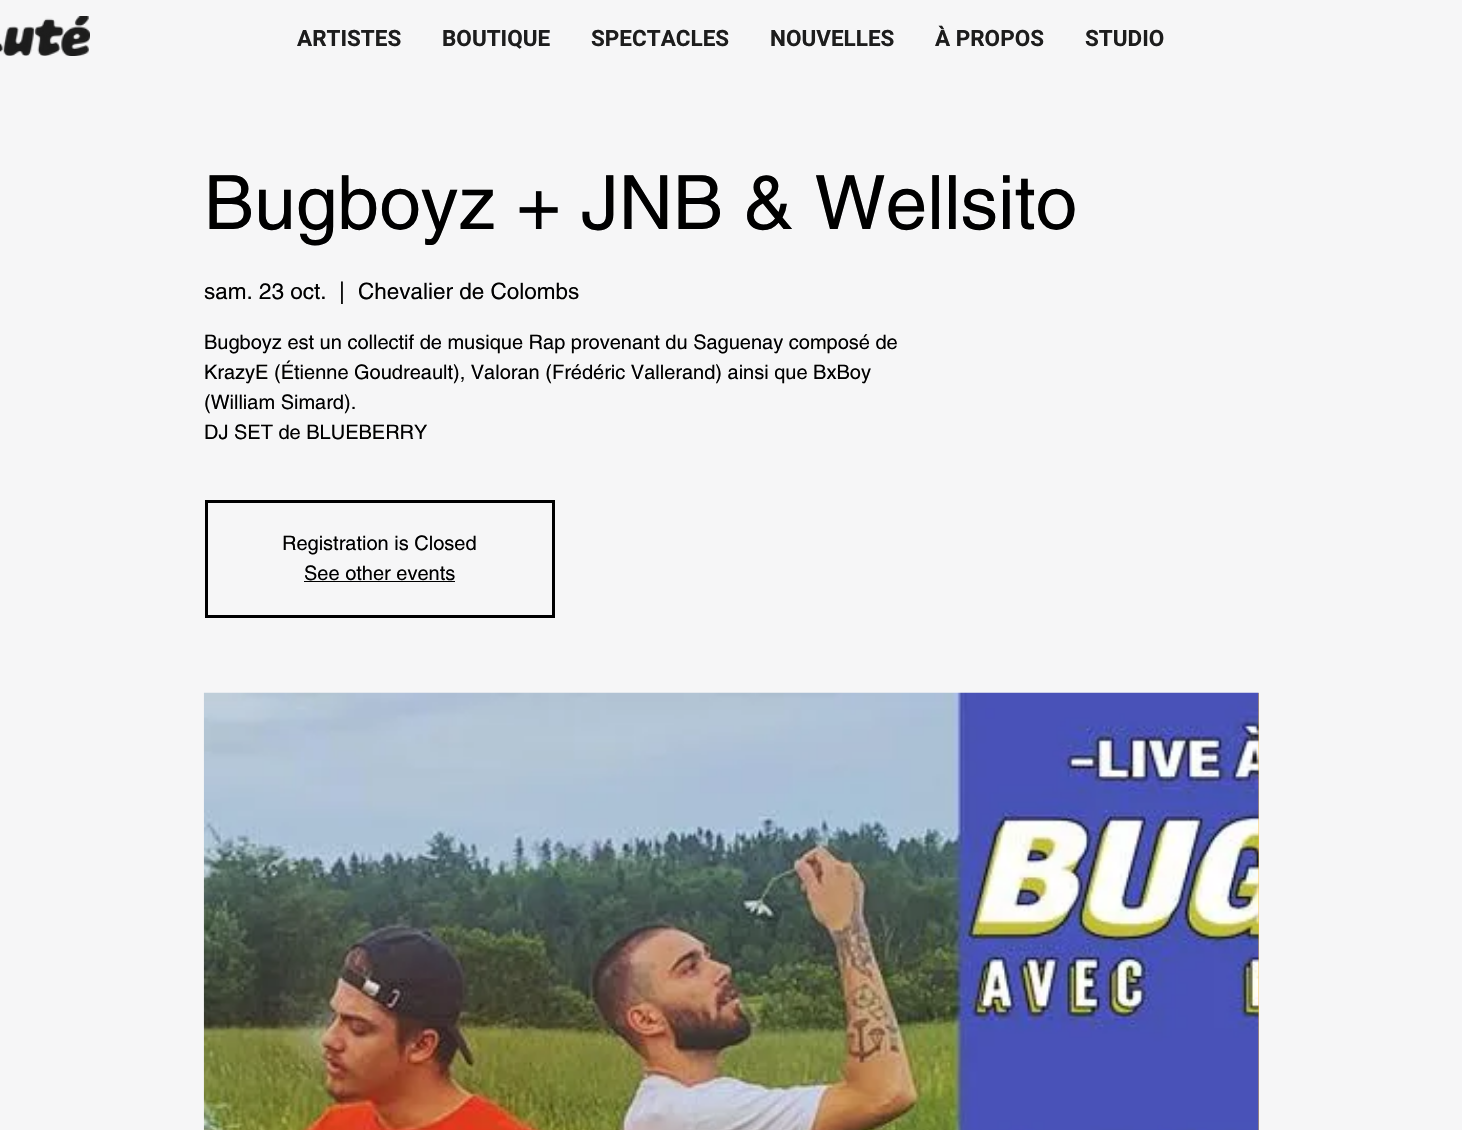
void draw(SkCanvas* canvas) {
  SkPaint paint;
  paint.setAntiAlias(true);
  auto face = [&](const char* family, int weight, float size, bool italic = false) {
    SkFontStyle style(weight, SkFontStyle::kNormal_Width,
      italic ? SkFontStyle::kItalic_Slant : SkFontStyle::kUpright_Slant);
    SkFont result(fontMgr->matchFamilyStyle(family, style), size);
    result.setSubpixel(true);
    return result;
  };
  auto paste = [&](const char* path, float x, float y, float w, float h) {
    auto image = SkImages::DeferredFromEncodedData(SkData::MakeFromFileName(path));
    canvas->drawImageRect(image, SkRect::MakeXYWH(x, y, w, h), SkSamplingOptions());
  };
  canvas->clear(0xfff6f6f7);
  paste("img/1.png", 0, 16, 90, 40);
  paint.setStroke(true);
  paint.setStrokeWidth(3);
  paint.setColor(0xff000000);
  canvas->drawRect(SkRect::MakeXYWH(206.5f, 501.5f, 347, 115), paint);
  paint.setStroke(false);
  canvas->drawRect(SkRect::MakeXYWH(304, 581, 151, 1), paint);
  paint.setColor(0xfff6bc3f);
  canvas->drawRect(SkRect::MakeXYWH(1258, 693, 1, 437), paint);
  paste("img/2.png", 203, 692, 1056, 438);
  auto f0 = face("Roboto", 700, 22.5f);
  paint.setColor(0xff1d1d1d);
  {
    const struct { const char* s; float x, y; } items[] = {
      {"ARTISTES", 297, 46},
      {"BOUTIQUE", 442, 46},
      {"SPECTACLES", 591, 46},
      {"NOUVELLES", 770, 46},
      {"À PROPOS", 935, 46},
      {"STUDIO", 1085, 46},
    };
    for (auto [s, x, y] : items) {
      canvas->drawString(s, x, y, f0, paint);
    }
  }
  auto f1 = face("helvetica", 400, 75);
  paint.setColor(0xff000000);
  canvas->drawString("Bugboyz + JNB & Wellsito", 204, 229, f1, paint);
  auto f2 = face("helvetica", 400, 22.5f);
  {
    const struct { const char* s; float x, y; } items[] = {
      {"sam. 23 oct.", 204, 299},
      {"|", 339, 299},
      {"Chevalier de Colombs", 358, 299},
    };
    for (auto [s, x, y] : items) {
      canvas->drawString(s, x, y, f2, paint);
    }
  }
  auto f3 = face("helvetica", 400, 20);
  {
    const struct { const char* s; float x, y; } items[] = {
      {"Bugboyz est un collectif de musique Rap provenant du Saguenay composé de", 204, 349},
      {"KrazyE (Étienne Goudreault), Valoran (Frédéric Vallerand) ainsi que BxBoy", 204, 379},
      {"(William Simard).", 204, 409},
      {"DJ SET de BLUEBERRY", 204, 439},
      {"Registration is Closed", 282, 550},
      {"See other events", 304, 580},
    };
    for (auto [s, x, y] : items) {
      canvas->drawString(s, x, y, f3, paint);
    }
  }
}
